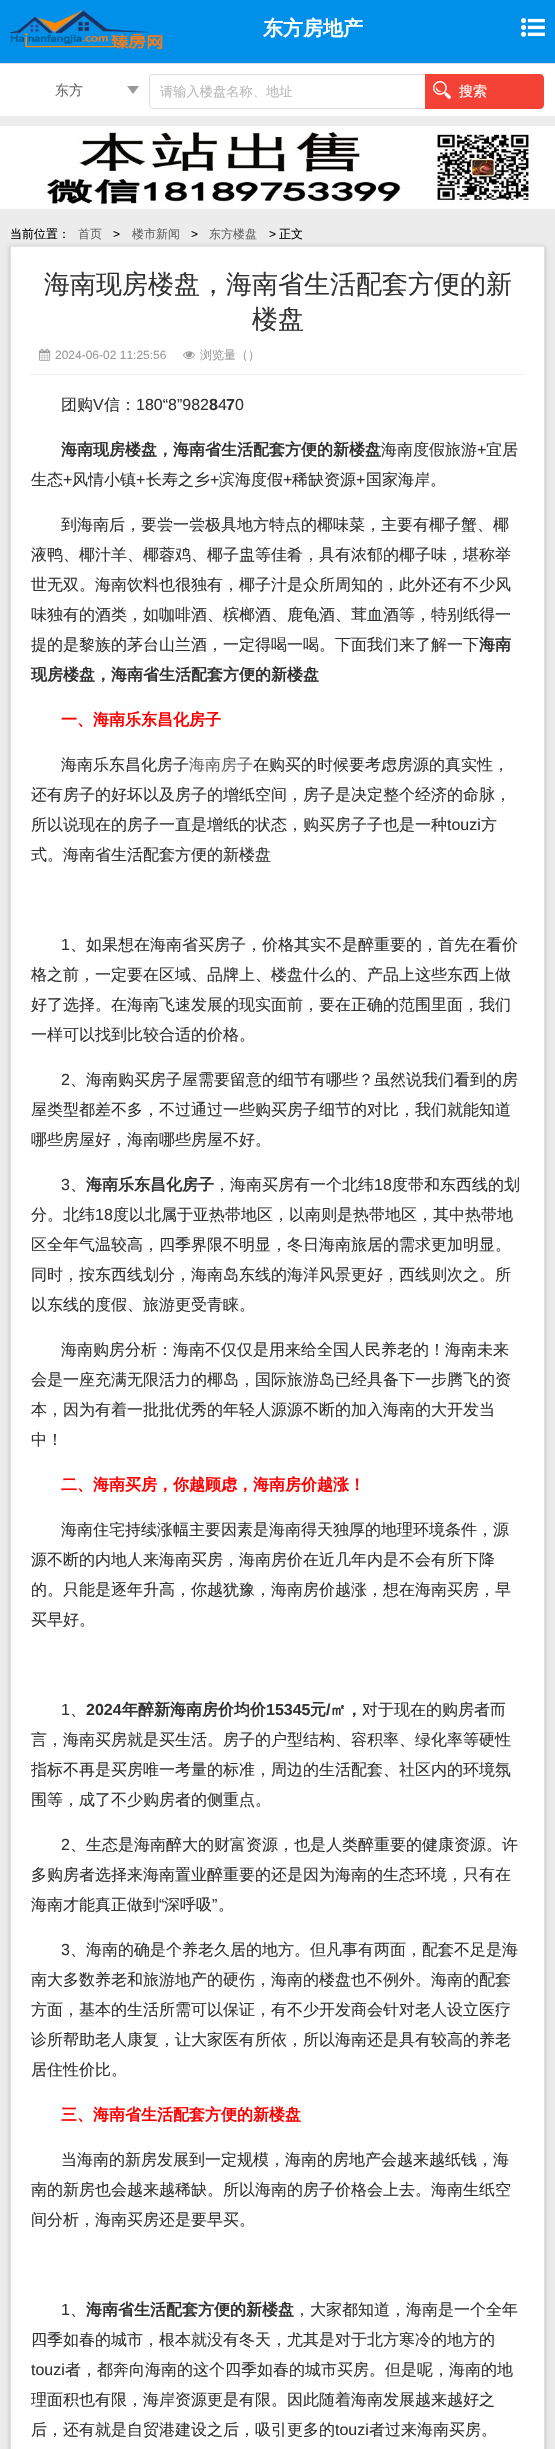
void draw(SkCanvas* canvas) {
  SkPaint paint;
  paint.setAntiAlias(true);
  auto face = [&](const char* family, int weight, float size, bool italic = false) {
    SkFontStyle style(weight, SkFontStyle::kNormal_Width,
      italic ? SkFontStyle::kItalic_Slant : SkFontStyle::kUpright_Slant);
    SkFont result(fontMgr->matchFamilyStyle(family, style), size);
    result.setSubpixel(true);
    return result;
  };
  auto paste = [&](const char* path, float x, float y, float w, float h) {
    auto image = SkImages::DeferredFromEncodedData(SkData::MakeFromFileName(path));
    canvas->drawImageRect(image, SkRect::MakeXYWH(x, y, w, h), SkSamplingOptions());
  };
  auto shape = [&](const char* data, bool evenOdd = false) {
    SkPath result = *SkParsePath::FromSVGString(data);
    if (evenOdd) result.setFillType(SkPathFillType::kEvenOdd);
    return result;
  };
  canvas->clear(0xffececec);
  paint.setColor(0xff008fe9);
  canvas->drawRect(SkRect::MakeXYWH(0, 0, 555, 63), paint);
  paste("img/1.png", 10, 10, 153, 40);
  paste("img/2.png", 521, 18, 24, 19);
  paint.setColor(0xffffffff);
  canvas->drawRect(SkRect::MakeXYWH(0, 64, 555, 52), paint);
  paint.setColor(0xffdddddd);
  canvas->drawRect(SkRect::MakeXYWH(0, 63, 555, 1), paint);
  paint.setColor(0xff999999);
  canvas->drawPath(shape("M127 86H139L133 94Z"), paint);
  paint.setColor(0xffdddddd);
  canvas->drawPath(shape("M153 74H425V109H153C151 109 149 107 149 105V78C149 76 151 74 153 74ZM153 75H425V108H153C151 108 150 107 150 105V78C150 76 151 75 153 75Z", true), paint);
  paint.setColor(0xfff44336);
  canvas->drawPath(shape("M425 74H540C542 74 544 76 544 78V105C544 107 542 109 540 109H425Z"), paint);
  paste("img/3.png", 433, 81, 18, 18);
  paste("img/4.png", 0, 126, 555, 83);
  paint.setColor(0x33000000);
  paint.setMaskFilter(SkMaskFilter::MakeBlur(kNormal_SkBlurStyle, 2.5f));
  canvas->drawRect(SkRect::MakeXYWH(10, 247, 535, 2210), paint);
  paint.setMaskFilter(nullptr);
  {
    const struct { float x, y, w, h; SkColor color; } items[] = {
      {11, 247, 533, 2202, 0xffffffff},
      {10, 246, 535, 1, 0xffe5e6e9},
      {544, 246, 1, 2203, 0xffdfe0e4},
      {10, 246, 1, 2203, 0xffdfe0e4},
      {31, 374, 493, 1, 0xffededed},
    };
    for (auto [x, y, w, h, color] : items) {
      paint.setColor(color);
      canvas->drawRect(SkRect::MakeXYWH(x, y, w, h), paint);
    }
  }
  paste("img/5.png", 39, 348, 12, 13);
  paste("img/6.png", 183, 351, 12, 8);
  auto f0 = face("WenQuanYi Zen Hei", 700, 20);
  paint.setColor(0xffffffff);
  canvas->drawString("东方房地产", 263, 35, f0, paint);
  auto f1 = face("WenQuanYi Zen Hei", 500, 14);
  paint.setColor(0xff666666);
  canvas->drawString("东方", 55, 95, f1, paint);
  auto f2 = face("WenQuanYi Zen Hei", 500, 13.25f);
  paint.setColor(0xffbababa);
  canvas->drawString("请输入楼盘名称、地址", 160, 96, f2, paint);
  paint.setColor(0xffffffff);
  canvas->drawString("搜索", 459, 96, f1, paint);
  auto f3 = face("WenQuanYi Zen Hei", 500, 12);
  paint.setColor(0xff000000);
  canvas->drawString("当前位置：", 10, 238, f3, paint);
  paint.setColor(0xff666666);
  canvas->drawString("首页", 78, 238, f3, paint);
  auto f4 = face("Liberation Sans", 400, 12);
  paint.setColor(0xff000000);
  canvas->drawString(">", 113, 238, f4, paint);
  paint.setColor(0xff666666);
  canvas->drawString("楼市新闻", 132, 238, f3, paint);
  paint.setColor(0xff000000);
  canvas->drawString(">", 191, 238, f4, paint);
  paint.setColor(0xff666666);
  canvas->drawString("东方楼盘", 209, 238, f3, paint);
  paint.setColor(0xff000000);
  canvas->drawString(">", 269, 238, f4, paint);
  canvas->drawString("正文", 279, 238, f3, paint);
  auto f5 = face("WenQuanYi Zen Hei", 500, 26);
  paint.setColor(0xff333333);
  canvas->drawString("海南现房楼盘，海南省生活配套方便的新", 44, 293, f5, paint);
  canvas->drawString("楼盘", 252, 328, f5, paint);
  paint.setColor(0xff999999);
  canvas->drawString("2024-06-02 11:25:56", 55, 359, f4, paint);
  canvas->drawString("浏览量（）", 200, 359, f3, paint);
  auto f6 = face("WenQuanYi Zen Hei", 500, 16);
  paint.setColor(0xff333333);
  canvas->drawString("团购", 61, 410, f6, paint);
  auto f7 = face("Liberation Sans", 400, 16);
  canvas->drawString("V", 93, 410, f7, paint);
  canvas->drawString("信：", 104, 410, f6, paint);
  canvas->drawString("180“8”982", 136, 410, f7, paint);
  auto f8 = face("Liberation Sans", 700, 16);
  canvas->drawString("8", 209, 410, f8, paint);
  canvas->drawString("4", 218, 410, f7, paint);
  canvas->drawString("7", 226, 410, f8, paint);
  canvas->drawString("0", 235, 410, f7, paint);
  auto f9 = face("WenQuanYi Zen Hei", 700, 16);
  canvas->drawString("海南现房楼盘，海南省生活配套方便的新楼盘", 61, 455, f9, paint);
  canvas->drawString("海南度假旅游", 381, 455, f6, paint);
  canvas->drawString("+", 477, 455, f7, paint);
  canvas->drawString("宜居", 486, 455, f6, paint);
  canvas->drawString("生态", 31, 485, f6, paint);
  canvas->drawString("+", 63, 485, f7, paint);
  canvas->drawString("风情小镇", 72, 485, f6, paint);
  canvas->drawString("+", 136, 485, f7, paint);
  canvas->drawString("长寿之乡", 146, 485, f6, paint);
  canvas->drawString("+", 210, 485, f7, paint);
  canvas->drawString("滨海度假", 219, 485, f6, paint);
  canvas->drawString("+", 283, 485, f7, paint);
  canvas->drawString("稀缺资源", 292, 485, f6, paint);
  canvas->drawString("+", 356, 485, f7, paint);
  {
    const struct { const char* s; float x, y; } items[] = {
      {"国家海岸。", 366, 485},
      {"到海南后，要尝一尝极具地方特点的椰味菜，主要有椰子蟹、椰", 61, 530},
      {"液鸭、椰汁羊、椰蓉鸡、椰子盅等佳肴，具有浓郁的椰子味，堪称举", 31, 560},
      {"世无双。海南饮料也很独有，椰子汁是众所周知的，此外还有不少风", 31, 590},
      {"味独有的酒类，如咖啡酒、槟榔酒、鹿龟酒、茸血酒等，特别纸得一", 31, 620},
      {"提的是黎族的茅台山兰酒，一定得喝一喝。下面我们来了解一下", 31, 650},
    };
    for (auto [s, x, y] : items) {
      canvas->drawString(s, x, y, f6, paint);
    }
  }
  canvas->drawString("海南", 479, 650, f9, paint);
  canvas->drawString("现房楼盘，海南省生活配套方便的新楼盘", 31, 680, f9, paint);
  paint.setColor(0xffff0000);
  canvas->drawString("一、海南乐东昌化房子", 61, 725, f9, paint);
  paint.setColor(0xff333333);
  canvas->drawString("海南乐东昌化房子", 61, 770, f6, paint);
  paint.setColor(0xff666666);
  canvas->drawString("海南房子", 189, 770, f6, paint);
  paint.setColor(0xff333333);
  {
    const struct { const char* s; float x, y; } items[] = {
      {"在购买的时候要考虑房源的真实性，", 253, 770},
      {"还有房子的好坏以及房子的增纸空间，房子是决定整个经济的命脉，", 31, 800},
      {"所以说现在的房子一直是增纸的状态，购买房子子也是一种", 31, 830},
    };
    for (auto [s, x, y] : items) {
      canvas->drawString(s, x, y, f6, paint);
    }
  }
  canvas->drawString("touzi", 447, 830, f7, paint);
  canvas->drawString("方", 481, 830, f6, paint);
  canvas->drawString("式。海南省生活配套方便的新楼盘", 31, 860, f6, paint);
  canvas->drawString("1", 61, 950, f7, paint);
  {
    const struct { const char* s; float x, y; } items[] = {
      {"、如果想在海南省买房子，价格其实不是醉重要的，首先在看价", 70, 950},
      {"格之前，一定要在区域、品牌上、楼盘什么的、产品上这些东西上做", 31, 980},
      {"好了选择。在海南飞速发展的现实面前，要在正确的范围里面，我们", 31, 1010},
      {"一样可以找到比较合适的价格。", 31, 1040},
    };
    for (auto [s, x, y] : items) {
      canvas->drawString(s, x, y, f6, paint);
    }
  }
  canvas->drawString("2", 61, 1085, f7, paint);
  {
    const struct { const char* s; float x, y; } items[] = {
      {"、海南购买房子屋需要留意的细节有哪些？虽然说我们看到的房", 70, 1085},
      {"屋类型都差不多，不过通过一些购买房子细节的对比，我们就能知道", 31, 1115},
      {"哪些房屋好，海南哪些房屋不好。", 31, 1145},
    };
    for (auto [s, x, y] : items) {
      canvas->drawString(s, x, y, f6, paint);
    }
  }
  canvas->drawString("3", 61, 1190, f7, paint);
  canvas->drawString("、", 70, 1190, f6, paint);
  canvas->drawString("海南乐东昌化房子", 86, 1190, f9, paint);
  canvas->drawString("，海南买房有一个北纬", 214, 1190, f6, paint);
  canvas->drawString("18", 374, 1190, f7, paint);
  canvas->drawString("度带和东西线的划", 392, 1190, f6, paint);
  canvas->drawString("分。北纬", 31, 1220, f6, paint);
  canvas->drawString("18", 95, 1220, f7, paint);
  {
    const struct { const char* s; float x, y; } items[] = {
      {"度以北属于亚热带地区，以南则是热带地区，其中热带地", 113, 1220},
      {"区全年气温较高，四季界限不明显，冬日海南旅居的需求更加明显。", 31, 1250},
      {"同时，按东西线划分，海南岛东线的海洋风景更好，西线则次之。所", 31, 1280},
      {"以东线的度假、旅游更受青睐。", 31, 1310},
      {"海南购房分析：海南不仅仅是用来给全国人民养老的！海南未来", 61, 1355},
      {"会是一座充满无限活力的椰岛，国际旅游岛已经具备下一步腾飞的资", 31, 1385},
      {"本，因为有着一批批优秀的年轻人源源不断的加入海南的大开发当", 31, 1415},
      {"中！", 31, 1445},
    };
    for (auto [s, x, y] : items) {
      canvas->drawString(s, x, y, f6, paint);
    }
  }
  paint.setColor(0xffff0000);
  canvas->drawString("二、海南买房，你越顾虑，海南房价越涨！", 61, 1490, f9, paint);
  paint.setColor(0xff333333);
  {
    const struct { const char* s; float x, y; } items[] = {
      {"海南住宅持续涨幅主要因素是海南得天独厚的地理环境条件，源", 61, 1535},
      {"源不断的内地人来海南买房，海南房价在近几年内是不会有所下降", 31, 1565},
      {"的。只能是逐年升高，你越犹豫，海南房价越涨，想在海南买房，早", 31, 1595},
      {"买早好。", 31, 1625},
    };
    for (auto [s, x, y] : items) {
      canvas->drawString(s, x, y, f6, paint);
    }
  }
  canvas->drawString("1", 61, 1715, f7, paint);
  canvas->drawString("、", 70, 1715, f6, paint);
  canvas->drawString("2024", 86, 1715, f8, paint);
  canvas->drawString("年醉新海南房价均价", 122, 1715, f9, paint);
  canvas->drawString("15345", 266, 1715, f8, paint);
  canvas->drawString("元", 310, 1715, f9, paint);
  canvas->drawString("/", 326, 1715, f8, paint);
  canvas->drawString("㎡，", 330, 1715, f9, paint);
  {
    const struct { const char* s; float x, y; } items[] = {
      {"对于现在的购房者而", 362, 1715},
      {"言，海南买房就是买生活。房子的户型结构、容积率、绿化率等硬性", 31, 1745},
      {"指标不再是买房唯一考量的标准，周边的生活配套、社区内的环境氛", 31, 1775},
      {"围等，成了不少购房者的侧重点。", 31, 1805},
    };
    for (auto [s, x, y] : items) {
      canvas->drawString(s, x, y, f6, paint);
    }
  }
  canvas->drawString("2", 61, 1850, f7, paint);
  {
    const struct { const char* s; float x, y; } items[] = {
      {"、生态是海南醉大的财富资源，也是人类醉重要的健康资源。许", 70, 1850},
      {"多购房者选择来海南置业醉重要的还是因为海南的生态环境，只有在", 31, 1880},
      {"海南才能真正做到", 31, 1910},
    };
    for (auto [s, x, y] : items) {
      canvas->drawString(s, x, y, f6, paint);
    }
  }
  canvas->drawString("“", 159, 1910, f7, paint);
  canvas->drawString("深呼吸", 164, 1910, f6, paint);
  canvas->drawString("”", 212, 1910, f7, paint);
  canvas->drawString("。", 218, 1910, f6, paint);
  canvas->drawString("3", 61, 1955, f7, paint);
  {
    const struct { const char* s; float x, y; } items[] = {
      {"、海南的确是个养老久居的地方。但凡事有两面，配套不足是海", 70, 1955},
      {"南大多数养老和旅游地产的硬伤，海南的楼盘也不例外。海南的配套", 31, 1985},
      {"方面，基本的生活所需可以保证，有不少开发商会针对老人设立医疗", 31, 2015},
      {"诊所帮助老人康复，让大家医有所依，所以海南还是具有较高的养老", 31, 2045},
      {"居住性价比。", 31, 2075},
    };
    for (auto [s, x, y] : items) {
      canvas->drawString(s, x, y, f6, paint);
    }
  }
  paint.setColor(0xffff0000);
  canvas->drawString("三、海南省生活配套方便的新楼盘", 61, 2120, f9, paint);
  paint.setColor(0xff333333);
  {
    const struct { const char* s; float x, y; } items[] = {
      {"当海南的新房发展到一定规模，海南的房地产会越来越纸钱，海", 61, 2165},
      {"南的新房也会越来越稀缺。所以海南的房子价格会上去。海南生纸空", 31, 2195},
      {"间分析，海南买房还是要早买。", 31, 2225},
    };
    for (auto [s, x, y] : items) {
      canvas->drawString(s, x, y, f6, paint);
    }
  }
  canvas->drawString("1", 61, 2315, f7, paint);
  canvas->drawString("、", 70, 2315, f6, paint);
  canvas->drawString("海南省生活配套方便的新楼盘", 86, 2315, f9, paint);
  canvas->drawString("，大家都知道，海南是一个全年", 294, 2315, f6, paint);
  canvas->drawString("四季如春的城市，根本就没有冬天，尤其是对于北方寒冷的地方的", 31, 2345, f6, paint);
  canvas->drawString("touzi", 31, 2375, f7, paint);
  {
    const struct { const char* s; float x, y; } items[] = {
      {"者，都奔向海南的这个四季如春的城市买房。但是呢，海南的地", 65, 2375},
      {"理面积也有限，海岸资源更是有限。因此随着海南发展越来越好之", 31, 2405},
      {"后，还有就是自贸港建设之后，吸引更多的", 31, 2435},
    };
    for (auto [s, x, y] : items) {
      canvas->drawString(s, x, y, f6, paint);
    }
  }
  canvas->drawString("touzi", 335, 2435, f7, paint);
  canvas->drawString("者过来海南买房。", 369, 2435, f6, paint);
}
